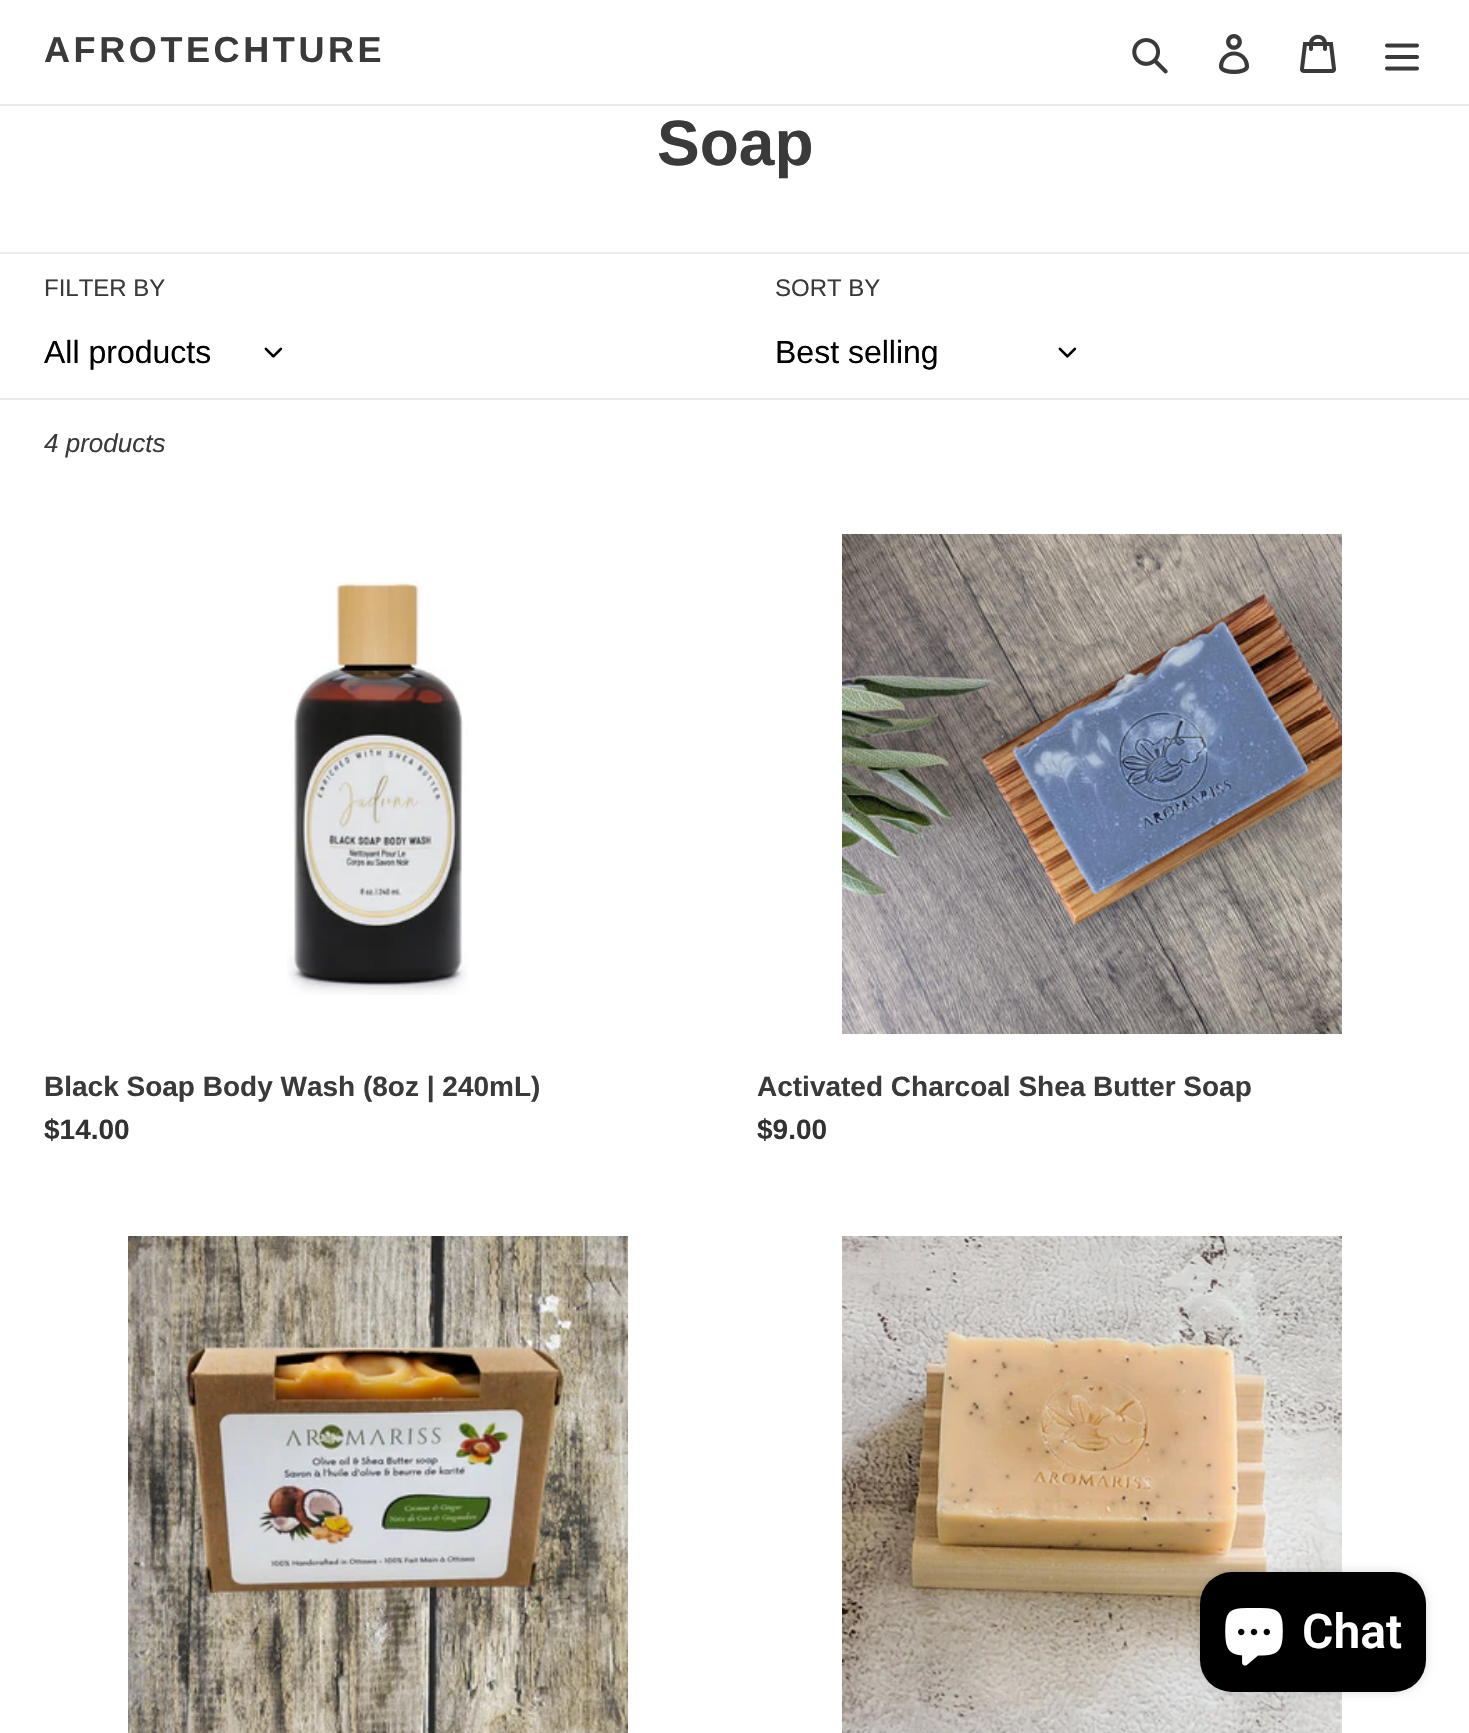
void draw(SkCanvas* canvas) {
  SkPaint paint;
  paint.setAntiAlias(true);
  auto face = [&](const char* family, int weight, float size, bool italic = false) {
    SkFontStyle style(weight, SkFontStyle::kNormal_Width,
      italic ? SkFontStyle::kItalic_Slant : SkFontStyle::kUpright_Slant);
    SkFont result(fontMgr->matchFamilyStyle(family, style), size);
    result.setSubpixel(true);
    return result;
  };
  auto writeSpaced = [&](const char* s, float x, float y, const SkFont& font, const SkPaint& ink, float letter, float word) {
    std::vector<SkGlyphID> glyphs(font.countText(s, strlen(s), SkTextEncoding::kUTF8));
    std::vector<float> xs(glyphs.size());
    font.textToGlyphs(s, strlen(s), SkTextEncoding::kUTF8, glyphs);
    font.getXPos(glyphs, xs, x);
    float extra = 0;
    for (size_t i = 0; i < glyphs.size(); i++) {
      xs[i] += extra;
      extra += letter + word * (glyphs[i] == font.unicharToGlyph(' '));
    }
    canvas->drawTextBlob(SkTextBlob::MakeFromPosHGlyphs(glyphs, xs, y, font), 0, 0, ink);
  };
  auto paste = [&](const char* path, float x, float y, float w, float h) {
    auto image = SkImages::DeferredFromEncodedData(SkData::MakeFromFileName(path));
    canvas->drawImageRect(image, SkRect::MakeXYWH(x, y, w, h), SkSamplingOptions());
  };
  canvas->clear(0xffffffff);
  paint.setColor(0xffebebeb);
  canvas->drawRect(SkRect::MakeXYWH(0, 104, 1469, 2), paint);
  paste("img/1.png", 1132, 38, 36, 36);
  paste("img/2.png", 1219, 34, 31, 40);
  paste("img/3.png", 1300, 34, 36, 39);
  paste("img/4.png", 1385, 43, 34, 28);
  canvas->drawRect(SkRect::MakeXYWH(0, 252, 1469, 2), paint);
  paste("img/5.png", 264, 347, 18, 11);
  paste("img/6.png", 1058, 347, 19, 11);
  canvas->drawRect(SkRect::MakeXYWH(0, 398, 1469, 2), paint);
  paste("img/7.png", 287, 581, 181, 414);
  paste("img/8.png", 842, 534, 500, 500);
  paste("img/9.png", 128, 1236, 500, 497);
  paste("img/10.png", 842, 1236, 500, 497);
  paint.setColor(0x26000000);
  paint.setMaskFilter(SkMaskFilter::MakeBlur(kNormal_SkBlurStyle, 5));
  canvas->drawRoundRect(SkRect::MakeXYWH(1200, 1572, 226, 120), 32, 32, paint);
  paint.setMaskFilter(nullptr);
  paint.setColor(0xff000000);
  canvas->drawRoundRect(SkRect::MakeXYWH(1200, 1572, 226, 120), 32, 32, paint);
  paste("img/11.png", 1225, 1608, 58, 58);
  auto f0 = face("Liberation Sans", 700, 36);
  paint.setColor(0xff3a3a3a);
  writeSpaced("AFROTECHTURE", 44, 62, f0, paint, 3.6f, 0);
  auto f1 = face("Liberation Sans", 700, 64);
  canvas->drawString("Soap", 657, 165, f1, paint);
  auto f2 = face("Liberation Sans", 400, 24);
  canvas->drawString("FILTER BY", 44, 296, f2, paint);
  auto f3 = face("Liberation Sans", 400, 32);
  paint.setColor(0xff000000);
  canvas->drawString("All products", 44, 363, f3, paint);
  paint.setColor(0xff3a3a3a);
  canvas->drawString("SORT BY", 775, 296, f2, paint);
  paint.setColor(0xff000000);
  canvas->drawString("Best selling", 775, 363, f3, paint);
  auto f4 = face("Liberation Sans", 400, 26, true);
  paint.setColor(0xff3a3a3a);
  canvas->drawString("4 products", 44, 452, f4, paint);
  auto f5 = face("Liberation Sans", 700, 28);
  canvas->drawString("Black Soap Body Wash (8oz | 240mL)", 44, 1096, f5, paint);
  paint.setColor(0xff333232);
  canvas->drawString("$14.00", 44, 1139, f5, paint);
  paint.setColor(0xff3a3a3a);
  canvas->drawString("Activated Charcoal Shea Butter Soap", 757, 1096, f5, paint);
  paint.setColor(0xff333232);
  canvas->drawString("$9.00", 757, 1139, f5, paint);
  auto f6 = face("Roboto", 600, 48);
  paint.setColor(0xffffffff);
  canvas->drawString("Chat", 1302, 1648, f6, paint);
}
